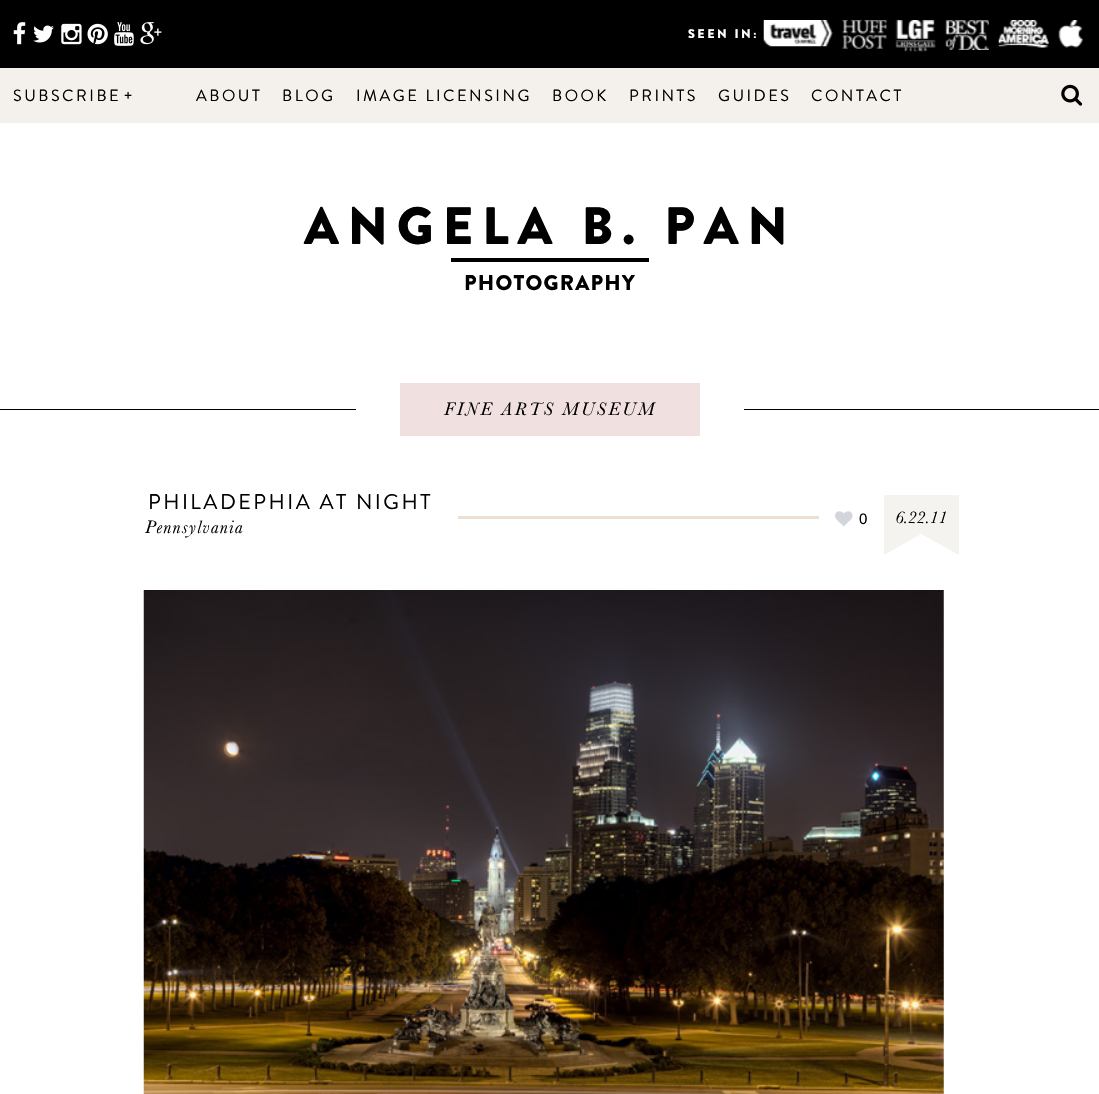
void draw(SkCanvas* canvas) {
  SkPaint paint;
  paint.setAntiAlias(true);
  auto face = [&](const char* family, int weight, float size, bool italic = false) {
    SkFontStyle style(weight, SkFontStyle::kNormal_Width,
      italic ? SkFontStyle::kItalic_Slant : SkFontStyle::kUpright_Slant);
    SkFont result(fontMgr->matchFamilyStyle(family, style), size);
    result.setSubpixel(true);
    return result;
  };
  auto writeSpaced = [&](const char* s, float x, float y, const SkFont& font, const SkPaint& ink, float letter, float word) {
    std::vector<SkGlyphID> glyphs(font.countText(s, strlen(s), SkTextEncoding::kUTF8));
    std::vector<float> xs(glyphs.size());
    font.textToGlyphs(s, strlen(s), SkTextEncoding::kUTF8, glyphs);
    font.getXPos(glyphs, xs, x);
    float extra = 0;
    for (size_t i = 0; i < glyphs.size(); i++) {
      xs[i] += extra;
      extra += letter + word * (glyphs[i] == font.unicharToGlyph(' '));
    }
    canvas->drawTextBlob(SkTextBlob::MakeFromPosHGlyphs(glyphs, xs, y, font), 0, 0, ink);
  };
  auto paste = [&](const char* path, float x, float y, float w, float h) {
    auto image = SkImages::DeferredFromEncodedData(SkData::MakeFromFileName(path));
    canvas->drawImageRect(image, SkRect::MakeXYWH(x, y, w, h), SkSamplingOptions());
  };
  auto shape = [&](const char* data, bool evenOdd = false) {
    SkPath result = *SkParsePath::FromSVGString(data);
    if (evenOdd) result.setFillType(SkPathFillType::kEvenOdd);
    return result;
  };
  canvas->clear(0xffffffff);
  paint.setColor(0xff000000);
  canvas->drawRect(SkRect::MakeXYWH(0, 0, 1099, 68), paint);
  paste("img/1.png", 13, 22, 13, 23);
  paste("img/2.png", 33, 25, 21, 18);
  paste("img/3.png", 61, 23, 21, 22);
  paste("img/4.png", 87, 23, 21, 22);
  paste("img/5.png", 114, 22, 20, 24);
  paste("img/6.png", 140, 22, 22, 23);
  paste("img/7.png", 763, 20, 70, 27);
  paste("img/8.png", 841, 20, 46, 29);
  paste("img/9.png", 895, 20, 41, 32);
  paste("img/10.png", 945, 20, 44, 30);
  paste("img/11.png", 998, 20, 51, 28);
  paste("img/12.png", 1058, 20, 25, 28);
  paint.setColor(0xfff4f1ed);
  canvas->drawRect(SkRect::MakeXYWH(0, 68, 1099, 55), paint);
  paste("img/13.png", 1061, 84, 22, 22);
  {
    const struct { float x, y, w, h; SkColor color; } items[] = {
      {451, 258, 198, 4, 0xff000000},
      {0, 409, 1099, 1, 0xff000000},
      {356, 409, 388, 1, 0xffffffff},
      {400, 383, 300, 53, 0xfff0e0df},
      {458, 516, 361, 3, 0xffece0ce},
    };
    for (auto [x, y, w, h, color] : items) {
      paint.setColor(color);
      canvas->drawRect(SkRect::MakeXYWH(x, y, w, h), paint);
    }
  }
  paste("img/14.png", 835, 511, 18, 16);
  paint.setColor(0xfff4f3f0);
  canvas->drawRect(SkRect::MakeXYWH(884, 495, 75, 60), paint);
  paint.setColor(0xffffffff);
  canvas->drawPath(shape("M959 555H884L921 534Z"), paint);
  paste("img/15.png", 143, 590, 801, 504);
  auto f0 = face("Brandon Grotesque", 900, 12.5f);
  writeSpaced("SEEN IN:", 688, 38, f0, paint, 2.5f, 0);
  auto f1 = face("Brandon Grotesque", 400, 16.25f);
  paint.setColor(0xff000000);
  {
    const struct { const char* s; float x, y; } items[] = {
      {"SUBSCRIBE", 13, 101},
      {"+", 124, 101},
      {"ABOUT", 196, 101},
      {"BLOG", 282, 101},
      {"IMAGE LICENSING", 356, 101},
      {"BOOK", 552, 101},
      {"PRINTS", 629, 101},
      {"GUIDES", 718, 101},
      {"CONTACT", 811, 101},
    };
    for (auto [s, x, y] : items) {
      writeSpaced(s, x, y, f1, paint, 2.5f, 0);
    }
  }
  auto f2 = face("Brandon Grotesque", 900, 52.5f);
  writeSpaced("ANGELA B. PAN", 304, 244, f2, paint, 8.75f, 0);
  auto f3 = face("Brandon Grotesque", 900, 21.25f);
  writeSpaced("PHOTOGRAPHY", 464, 290, f3, paint, 1.25f, 0);
  auto f4 = face("Baskerville", 400, 18.75f, true);
  writeSpaced("FINE ARTS MUSEUM", 444, 415, f4, paint, 2.5f, 0);
  auto f5 = face("Brandon Grotesque", 400, 21.25f);
  writeSpaced("PHILADEPHIA AT NIGHT", 148, 509, f5, paint, 2.5f, 0);
  writeSpaced("Pennsylvania", 145, 533, f4, paint, 1.25f, 0);
  auto f6 = face("Liberation Sans", 400, 15);
  canvas->drawString("0", 859, 524, f6, paint);
  auto f7 = face("Baskerville", 400, 17.5f, true);
  canvas->drawString("6.22.11", 895, 523, f7, paint);
}
